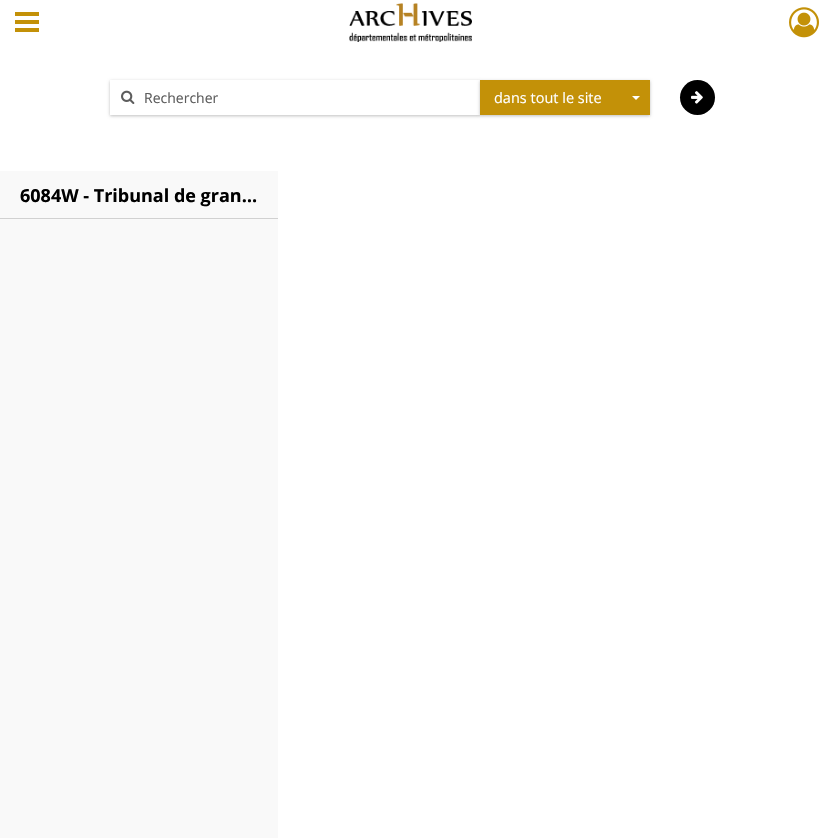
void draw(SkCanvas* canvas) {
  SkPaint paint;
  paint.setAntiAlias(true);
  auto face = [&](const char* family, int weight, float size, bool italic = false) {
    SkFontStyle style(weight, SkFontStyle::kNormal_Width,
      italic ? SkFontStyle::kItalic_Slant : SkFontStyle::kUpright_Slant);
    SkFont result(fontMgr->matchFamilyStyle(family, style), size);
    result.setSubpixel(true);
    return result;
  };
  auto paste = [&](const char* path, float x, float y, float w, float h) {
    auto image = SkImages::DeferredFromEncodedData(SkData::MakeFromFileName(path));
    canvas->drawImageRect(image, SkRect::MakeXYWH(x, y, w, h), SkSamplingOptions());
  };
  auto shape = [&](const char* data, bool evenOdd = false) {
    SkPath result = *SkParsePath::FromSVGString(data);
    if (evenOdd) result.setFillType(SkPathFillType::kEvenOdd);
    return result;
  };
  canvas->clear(0xffffffff);
  {
    const struct { float x, y, w, h; SkColor color; } items[] = {
      {15, 12, 24, 4, 0xffc39108},
      {15, 20, 24, 4, 0xffc39108},
      {15, 28, 24, 4, 0xffc39108},
    };
    for (auto [x, y, w, h, color] : items) {
      paint.setColor(color);
      canvas->drawRect(SkRect::MakeXYWH(x, y, w, h), paint);
    }
  }
  paste("img/1.png", 349, 3, 123, 39);
  paste("img/2.png", 789, 7, 30, 31);
  canvas->save();
  canvas->clipPath(shape("M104 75H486V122H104ZM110 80H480V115H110Z", true), true);
  paint.setColor(0x40000000);
  paint.setMaskFilter(SkMaskFilter::MakeBlur(kNormal_SkBlurStyle, 1.5f));
  canvas->drawRect(SkRect::MakeXYWH(110, 81, 370, 35), paint);
  paint.setMaskFilter(nullptr);
  canvas->restore();
  paste("img/3.png", 121, 90, 14, 14);
  paint.setMaskFilter(SkMaskFilter::MakeBlur(kNormal_SkBlurStyle, 1.5f));
  canvas->drawRect(SkRect::MakeXYWH(480, 81, 170, 35), paint);
  paint.setMaskFilter(nullptr);
  paint.setColor(0xffc39108);
  canvas->drawRect(SkRect::MakeXYWH(480, 80, 170, 35), paint);
  paint.setColor(0xffffffff);
  canvas->drawPath(shape("M632 96H640L636 100Z"), paint);
  paint.setColor(0xff000000);
  canvas->drawCircle(697.5f, 97.5f, 17.5f, paint);
  paste("img/4.png", 691, 91, 12, 13);
  {
    const struct { float x, y, w, h; SkColor color; } items[] = {
      {0, 171, 278, 47, 0xfff9f9f9},
      {0, 218, 278, 1, 0xffd1d1d1},
      {0, 219, 278, 619, 0xfff9f9f9},
    };
    for (auto [x, y, w, h, color] : items) {
      paint.setColor(color);
      canvas->drawRect(SkRect::MakeXYWH(x, y, w, h), paint);
    }
  }
  auto f0 = face("Open Sans", 400, 14);
  paint.setColor(0xff5d5d5d);
  canvas->drawString("Rechercher", 144, 103, f0, paint);
  auto f1 = face("Open Sans", 400, 14.5f);
  paint.setColor(0xffffffff);
  canvas->drawString("dans tout le site", 494, 103, f1, paint);
  auto f2 = face("Open Sans", 700, 18);
  paint.setColor(0xff000000);
  canvas->drawString("6084W - Tribunal de gran…", 20, 202, f2, paint);
}
